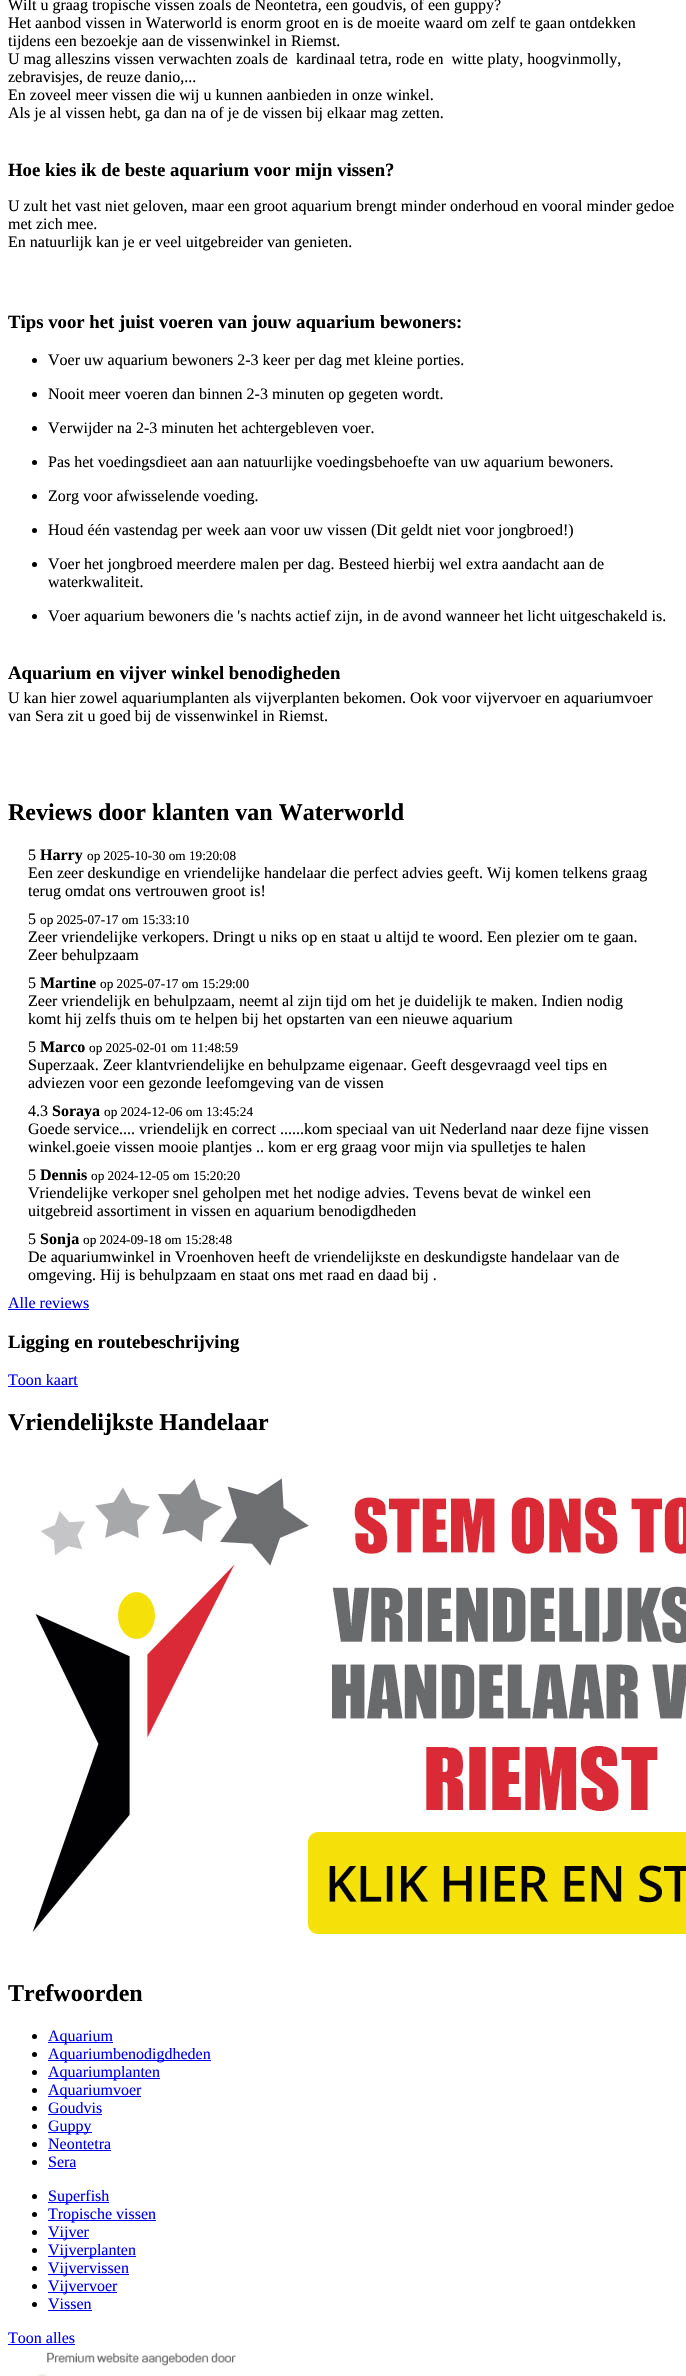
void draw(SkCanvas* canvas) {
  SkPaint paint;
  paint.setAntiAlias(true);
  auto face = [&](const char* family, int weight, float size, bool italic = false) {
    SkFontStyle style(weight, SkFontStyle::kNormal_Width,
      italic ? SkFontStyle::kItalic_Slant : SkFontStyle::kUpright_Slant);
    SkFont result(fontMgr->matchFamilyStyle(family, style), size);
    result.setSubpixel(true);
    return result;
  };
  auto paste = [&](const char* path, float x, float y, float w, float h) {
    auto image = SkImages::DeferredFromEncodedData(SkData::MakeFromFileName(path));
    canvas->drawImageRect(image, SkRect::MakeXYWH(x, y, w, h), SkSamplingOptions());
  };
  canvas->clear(0xffffffff);
  paint.setColor(0xff000000);
  canvas->drawCircle(34.5f, 360.5f, 2.5f, paint);
  canvas->drawCircle(34.5f, 394.5f, 2.5f, paint);
  canvas->drawCircle(34.5f, 428.5f, 2.5f, paint);
  canvas->drawCircle(34.5f, 462.5f, 2.5f, paint);
  canvas->drawCircle(34.5f, 496.5f, 2.5f, paint);
  canvas->drawCircle(34.5f, 530.5f, 2.5f, paint);
  canvas->drawCircle(34.5f, 564.5f, 2.5f, paint);
  canvas->drawCircle(34.5f, 616.5f, 2.5f, paint);
  paint.setColor(0xff0000ee);
  canvas->drawRect(SkRect::MakeXYWH(8, 1309, 81, 1), paint);
  canvas->drawRect(SkRect::MakeXYWH(8, 1386, 70, 1), paint);
  paste("img/1.png", 32, 1472, 654, 464);
  paint.setColor(0xff000000);
  canvas->drawCircle(34.5f, 2036.5f, 2.5f, paint);
  paint.setColor(0xff0000ee);
  canvas->drawRect(SkRect::MakeXYWH(48, 2042, 65, 1), paint);
  paint.setColor(0xff000000);
  canvas->drawCircle(34.5f, 2054.5f, 2.5f, paint);
  paint.setColor(0xff0000ee);
  canvas->drawRect(SkRect::MakeXYWH(48, 2060, 163, 1), paint);
  paint.setColor(0xff000000);
  canvas->drawCircle(34.5f, 2072.5f, 2.5f, paint);
  paint.setColor(0xff0000ee);
  canvas->drawRect(SkRect::MakeXYWH(48, 2078, 112, 1), paint);
  paint.setColor(0xff000000);
  canvas->drawCircle(34.5f, 2090.5f, 2.5f, paint);
  paint.setColor(0xff0000ee);
  canvas->drawRect(SkRect::MakeXYWH(48, 2096, 93, 1), paint);
  paint.setColor(0xff000000);
  canvas->drawCircle(34.5f, 2108.5f, 2.5f, paint);
  paint.setColor(0xff0000ee);
  canvas->drawRect(SkRect::MakeXYWH(48, 2114, 54, 1), paint);
  paint.setColor(0xff000000);
  canvas->drawCircle(34.5f, 2126.5f, 2.5f, paint);
  paint.setColor(0xff0000ee);
  canvas->drawRect(SkRect::MakeXYWH(48, 2132, 44, 1), paint);
  paint.setColor(0xff000000);
  canvas->drawCircle(34.5f, 2144.5f, 2.5f, paint);
  paint.setColor(0xff0000ee);
  canvas->drawRect(SkRect::MakeXYWH(48, 2150, 63, 1), paint);
  paint.setColor(0xff000000);
  canvas->drawCircle(34.5f, 2162.5f, 2.5f, paint);
  paint.setColor(0xff0000ee);
  canvas->drawRect(SkRect::MakeXYWH(48, 2168, 28, 1), paint);
  paint.setColor(0xff000000);
  canvas->drawCircle(34.5f, 2196.5f, 2.5f, paint);
  paint.setColor(0xff0000ee);
  canvas->drawRect(SkRect::MakeXYWH(48, 2202, 61, 1), paint);
  paint.setColor(0xff000000);
  canvas->drawCircle(34.5f, 2214.5f, 2.5f, paint);
  paint.setColor(0xff0000ee);
  canvas->drawRect(SkRect::MakeXYWH(48, 2220, 108, 1), paint);
  paint.setColor(0xff000000);
  canvas->drawCircle(34.5f, 2232.5f, 2.5f, paint);
  paint.setColor(0xff0000ee);
  canvas->drawRect(SkRect::MakeXYWH(48, 2238, 41, 1), paint);
  paint.setColor(0xff000000);
  canvas->drawCircle(34.5f, 2250.5f, 2.5f, paint);
  paint.setColor(0xff0000ee);
  canvas->drawRect(SkRect::MakeXYWH(48, 2256, 88, 1), paint);
  paint.setColor(0xff000000);
  canvas->drawCircle(34.5f, 2268.5f, 2.5f, paint);
  paint.setColor(0xff0000ee);
  canvas->drawRect(SkRect::MakeXYWH(48, 2274, 81, 1), paint);
  paint.setColor(0xff000000);
  canvas->drawCircle(34.5f, 2286.5f, 2.5f, paint);
  paint.setColor(0xff0000ee);
  canvas->drawRect(SkRect::MakeXYWH(48, 2292, 69, 1), paint);
  paint.setColor(0xff000000);
  canvas->drawCircle(34.5f, 2304.5f, 2.5f, paint);
  paint.setColor(0xff0000ee);
  canvas->drawRect(SkRect::MakeXYWH(48, 2310, 44, 1), paint);
  canvas->drawRect(SkRect::MakeXYWH(8, 2344, 67, 1), paint);
  paste("img/2.png", 37, 2352, 199, 24);
  auto f0 = face("Liberation Serif", 400, 16);
  paint.setColor(0xff000000);
  {
    const struct { const char* s; float x, y; } items[] = {
      {"Wilt u graag tropische vissen zoals de Neontetra, een goudvis, of een guppy?", 8, 10},
      {"Het aanbod vissen in Waterworld is enorm groot en is de moeite waard om zelf te gaan ontdekken", 8, 28},
      {"tijdens een bezoekje aan de vissenwinkel in Riemst.", 8, 46},
      {"U mag alleszins vissen verwachten zoals de  kardinaal tetra, rode en  witte platy, hoogvinmolly,", 8, 64},
      {"zebravisjes, de reuze danio,...", 8, 82},
      {"En zoveel meer vissen die wij u kunnen aanbieden in onze winkel.", 8, 100},
      {"Als je al vissen hebt, ga dan na of je de vissen bij elkaar mag zetten.", 8, 118},
    };
    for (auto [s, x, y] : items) {
      canvas->drawString(s, x, y, f0, paint);
    }
  }
  auto f1 = face("Liberation Serif", 700, 18.75f);
  canvas->drawString("Hoe kies ik de beste aquarium voor mijn vissen?", 8, 176, f1, paint);
  {
    const struct { const char* s; float x, y; } items[] = {
      {"U zult het vast niet geloven, maar een groot aquarium brengt minder onderhoud en vooral minder gedoe", 8, 211},
      {"met zich mee.", 8, 229},
      {"En natuurlijk kan je er veel uitgebreider van genieten.", 8, 247},
    };
    for (auto [s, x, y] : items) {
      canvas->drawString(s, x, y, f0, paint);
    }
  }
  canvas->drawString("Tips voor het juist voeren van jouw aquarium bewoners:", 8, 328, f1, paint);
  {
    const struct { const char* s; float x, y; } items[] = {
      {"Voer uw aquarium bewoners 2-3 keer per dag met kleine porties.", 48, 365},
      {"Nooit meer voeren dan binnen 2-3 minuten op gegeten wordt.", 48, 399},
      {"Verwijder na 2-3 minuten het achtergebleven voer.", 48, 433},
      {"Pas het voedingsdieet aan aan natuurlijke voedingsbehoefte van uw aquarium bewoners.", 48, 467},
      {"Zorg voor afwisselende voeding.", 48, 501},
      {"Houd één vastendag per week aan voor uw vissen (Dit geldt niet voor jongbroed!)", 48, 535},
      {"Voer het jongbroed meerdere malen per dag. Besteed hierbij wel extra aandacht aan de", 48, 569},
      {"waterkwaliteit.", 48, 587},
      {"Voer aquarium bewoners die 's nachts actief zijn, in de avond wanneer het licht uitgeschakeld is.", 48, 621},
    };
    for (auto [s, x, y] : items) {
      canvas->drawString(s, x, y, f0, paint);
    }
  }
  canvas->drawString("Aquarium en vijver winkel benodigheden", 8, 679, f1, paint);
  canvas->drawString("U kan hier zowel aquariumplanten als vijverplanten bekomen. Ook voor vijvervoer en aquariumvoer", 8, 703, f0, paint);
  canvas->drawString("van Sera zit u goed bij de vissenwinkel in Riemst.", 8, 721, f0, paint);
  auto f2 = face("Liberation Serif", 700, 24);
  canvas->drawString("Reviews door klanten van Waterworld", 8, 820, f2, paint);
  canvas->drawString("5", 28, 860, f0, paint);
  auto f3 = face("Liberation Serif", 700, 16);
  canvas->drawString("Harry", 40, 860, f3, paint);
  auto f4 = face("Liberation Serif", 400, 13.25f);
  canvas->drawString("op 2025-10-30 om 19:20:08", 87, 860, f4, paint);
  {
    const struct { const char* s; float x, y; } items[] = {
      {"Een zeer deskundige en vriendelijke handelaar die perfect advies geeft. Wij komen telkens graag", 28, 878},
      {"terug omdat ons vertrouwen groot is!", 28, 896},
      {"5", 28, 924},
    };
    for (auto [s, x, y] : items) {
      canvas->drawString(s, x, y, f0, paint);
    }
  }
  canvas->drawString("op 2025-07-17 om 15:33:10", 40, 924, f4, paint);
  {
    const struct { const char* s; float x, y; } items[] = {
      {"Zeer vriendelijke verkopers. Dringt u niks op en staat u altijd te woord. Een plezier om te gaan.", 28, 942},
      {"Zeer behulpzaam", 28, 960},
      {"5", 28, 988},
    };
    for (auto [s, x, y] : items) {
      canvas->drawString(s, x, y, f0, paint);
    }
  }
  canvas->drawString("Martine", 40, 988, f3, paint);
  canvas->drawString("op 2025-07-17 om 15:29:00", 100, 988, f4, paint);
  {
    const struct { const char* s; float x, y; } items[] = {
      {"Zeer vriendelijk en behulpzaam, neemt al zijn tijd om het je duidelijk te maken. Indien nodig", 28, 1006},
      {"komt hij zelfs thuis om te helpen bij het opstarten van een nieuwe aquarium", 28, 1024},
      {"5", 28, 1052},
    };
    for (auto [s, x, y] : items) {
      canvas->drawString(s, x, y, f0, paint);
    }
  }
  canvas->drawString("Marco", 40, 1052, f3, paint);
  canvas->drawString("op 2025-02-01 om 11:48:59", 89, 1052, f4, paint);
  {
    const struct { const char* s; float x, y; } items[] = {
      {"Superzaak. Zeer klantvriendelijke en behulpzame eigenaar. Geeft desgevraagd veel tips en", 28, 1070},
      {"adviezen voor een gezonde leefomgeving van de vissen", 28, 1088},
      {"4.3", 28, 1116},
    };
    for (auto [s, x, y] : items) {
      canvas->drawString(s, x, y, f0, paint);
    }
  }
  canvas->drawString("Soraya", 52, 1116, f3, paint);
  canvas->drawString("op 2024-12-06 om 13:45:24", 104, 1116, f4, paint);
  {
    const struct { const char* s; float x, y; } items[] = {
      {"Goede service.... vriendelijk en correct ......kom speciaal van uit Nederland naar deze fijne vissen", 28, 1134},
      {"winkel.goeie vissen mooie plantjes .. kom er erg graag voor mijn via spulletjes te halen", 28, 1152},
      {"5", 28, 1180},
    };
    for (auto [s, x, y] : items) {
      canvas->drawString(s, x, y, f0, paint);
    }
  }
  canvas->drawString("Dennis", 40, 1180, f3, paint);
  canvas->drawString("op 2024-12-05 om 15:20:20", 91, 1180, f4, paint);
  {
    const struct { const char* s; float x, y; } items[] = {
      {"Vriendelijke verkoper snel geholpen met het nodige advies. Tevens bevat de winkel een", 28, 1198},
      {"uitgebreid assortiment in vissen en aquarium benodigdheden", 28, 1216},
      {"5", 28, 1244},
    };
    for (auto [s, x, y] : items) {
      canvas->drawString(s, x, y, f0, paint);
    }
  }
  canvas->drawString("Sonja", 40, 1244, f3, paint);
  canvas->drawString("op 2024-09-18 om 15:28:48", 83, 1244, f4, paint);
  canvas->drawString("De aquariumwinkel in Vroenhoven heeft de vriendelijkste en deskundigste handelaar van de", 28, 1262, f0, paint);
  canvas->drawString("omgeving. Hij is behulpzaam en staat ons met raad en daad bij .", 28, 1280, f0, paint);
  paint.setColor(0xff0000ee);
  canvas->drawString("Alle reviews", 8, 1308, f0, paint);
  paint.setColor(0xff000000);
  canvas->drawString("Ligging en routebeschrijving", 8, 1348, f1, paint);
  paint.setColor(0xff0000ee);
  canvas->drawString("Toon kaart", 8, 1385, f0, paint);
  paint.setColor(0xff000000);
  canvas->drawString("Vriendelijkste Handelaar", 8, 1430, f2, paint);
  canvas->drawString("Trefwoorden", 8, 2001, f2, paint);
  paint.setColor(0xff0000ee);
  {
    const struct { const char* s; float x, y; } items[] = {
      {"Aquarium", 48, 2041},
      {"Aquariumbenodigdheden", 48, 2059},
      {"Aquariumplanten", 48, 2077},
      {"Aquariumvoer", 48, 2095},
      {"Goudvis", 48, 2113},
      {"Guppy", 48, 2131},
      {"Neontetra", 48, 2149},
      {"Sera", 48, 2167},
      {"Superfish", 48, 2201},
      {"Tropische vissen", 48, 2219},
      {"Vijver", 48, 2237},
      {"Vijverplanten", 48, 2255},
      {"Vijvervissen", 48, 2273},
      {"Vijvervoer", 48, 2291},
      {"Vissen", 48, 2309},
      {"Toon alles", 8, 2343},
    };
    for (auto [s, x, y] : items) {
      canvas->drawString(s, x, y, f0, paint);
    }
  }
}
